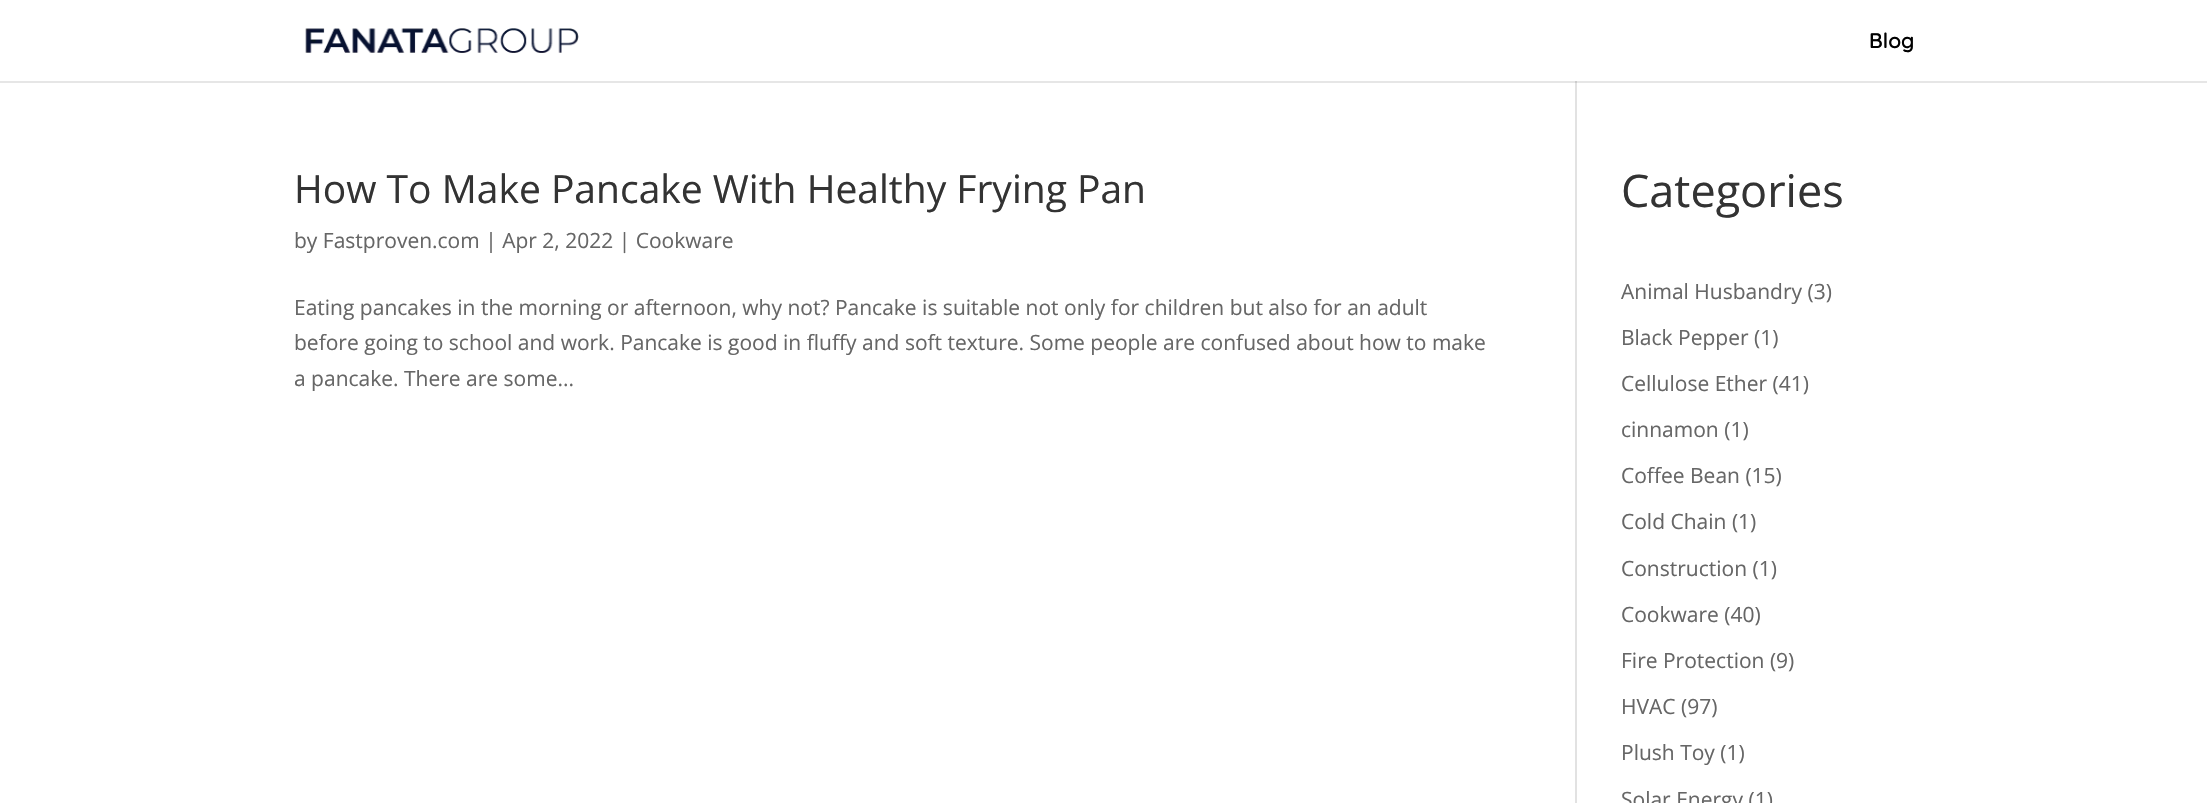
void draw(SkCanvas* canvas) {
  SkPaint paint;
  paint.setAntiAlias(true);
  auto face = [&](const char* family, int weight, float size, bool italic = false) {
    SkFontStyle style(weight, SkFontStyle::kNormal_Width,
      italic ? SkFontStyle::kItalic_Slant : SkFontStyle::kUpright_Slant);
    SkFont result(fontMgr->matchFamilyStyle(family, style), size);
    result.setSubpixel(true);
    return result;
  };
  auto paste = [&](const char* path, float x, float y, float w, float h) {
    auto image = SkImages::DeferredFromEncodedData(SkData::MakeFromFileName(path));
    canvas->drawImageRect(image, SkRect::MakeXYWH(x, y, w, h), SkSamplingOptions());
  };
  canvas->clear(0xffffffff);
  paint.setColor(0xffe6e6e6);
  canvas->drawRect(SkRect::MakeXYWH(0, 81, 2207, 2), paint);
  paste("img/1.png", 305, 28, 274, 25);
  paint.setColor(0xffe2e2e2);
  canvas->drawRect(SkRect::MakeXYWH(1575, 81, 2, 722), paint);
  paint.setColor(0xffcbcbcb);
  canvas->drawRect(SkRect::MakeXYWH(1575, 81, 2, 2), paint);
  auto f0 = face("Quicksand", 600, 21);
  paint.setColor(0xff000000);
  canvas->drawString("Blog", 1869, 48, f0, paint);
  auto f1 = face("Open Sans", 400, 39);
  paint.setColor(0xff333333);
  canvas->drawString("How To Make Pancake With Healthy Frying Pan", 294, 203, f1, paint);
  auto f2 = face("Open Sans", 400, 21);
  paint.setColor(0xff666666);
  {
    const struct { const char* s; float x, y; } items[] = {
      {"by Fastproven.com | Apr 2, 2022 | Cookware", 294, 248},
      {"Eating pancakes in the morning or afternoon, why not? Pancake is suitable not only for children but also for an adult", 294, 315},
      {"before going to school and work. Pancake is good in fluffy and soft texture. Some people are confused about how to make", 294, 350},
      {"a pancake. There are some...", 294, 386},
    };
    for (auto [s, x, y] : items) {
      canvas->drawString(s, x, y, f2, paint);
    }
  }
  auto f3 = face("Open Sans", 400, 45);
  paint.setColor(0xff333333);
  canvas->drawString("Categories", 1621, 207, f3, paint);
  paint.setColor(0xff666666);
  {
    const struct { const char* s; float x, y; } items[] = {
      {"Animal Husbandry (3)", 1621, 299},
      {"Black Pepper (1)", 1621, 345},
      {"Cellulose Ether (41)", 1621, 391},
      {"cinnamon (1)", 1621, 437},
      {"Coffee Bean (15)", 1621, 483},
      {"Cold Chain (1)", 1621, 529},
      {"Construction (1)", 1621, 576},
      {"Cookware (40)", 1621, 622},
      {"Fire Protection (9)", 1621, 668},
      {"HVAC (97)", 1621, 714},
      {"Plush Toy (1)", 1621, 760},
      {"Solar Energy (1)", 1621, 807},
    };
    for (auto [s, x, y] : items) {
      canvas->drawString(s, x, y, f2, paint);
    }
  }
}
